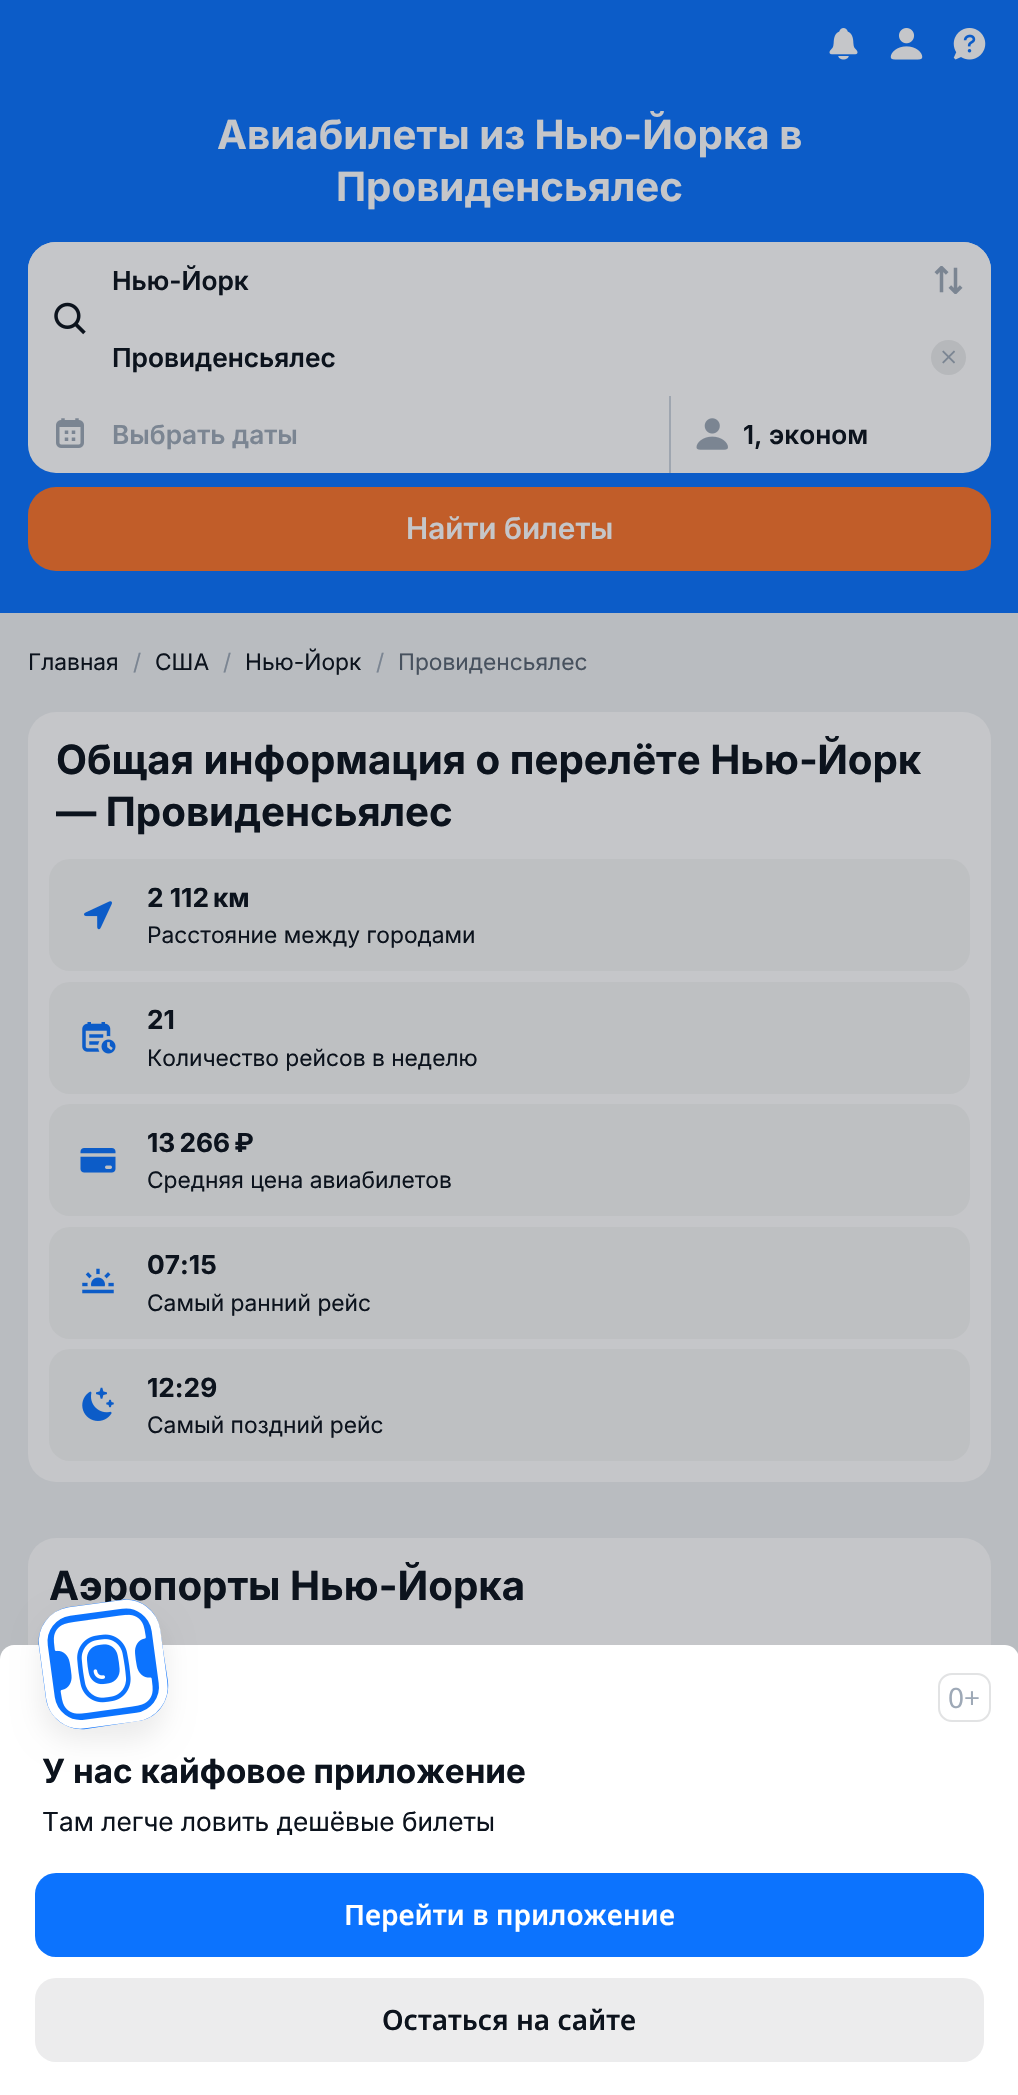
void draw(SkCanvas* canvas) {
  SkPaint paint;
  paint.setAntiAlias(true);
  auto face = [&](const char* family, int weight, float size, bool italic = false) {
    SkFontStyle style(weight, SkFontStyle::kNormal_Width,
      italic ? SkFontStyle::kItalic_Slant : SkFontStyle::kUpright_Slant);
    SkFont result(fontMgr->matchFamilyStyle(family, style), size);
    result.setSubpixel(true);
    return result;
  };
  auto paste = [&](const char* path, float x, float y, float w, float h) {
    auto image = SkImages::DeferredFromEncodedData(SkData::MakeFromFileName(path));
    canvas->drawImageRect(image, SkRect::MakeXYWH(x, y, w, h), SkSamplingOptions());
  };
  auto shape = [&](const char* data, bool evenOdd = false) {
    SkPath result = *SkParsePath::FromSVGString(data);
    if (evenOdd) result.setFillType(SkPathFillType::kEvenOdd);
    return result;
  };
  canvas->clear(0xffb9bcc0);
  paint.setColor(0xff0c5cc8);
  canvas->drawRect(SkRect::MakeXYWH(0, 0, 1018, 613), paint);
  paste("img/1.png", 829, 28, 29, 32);
  paste("img/2.png", 890, 28, 33, 32);
  paste("img/3.png", 953, 28, 33, 32);
  paint.setColor(0xffc5c6c9);
  canvas->drawRoundRect(SkRect::MakeXYWH(28, 242, 963, 231), 28, 28, paint);
  canvas->drawPath(shape("M56 242H963C978.5 242 991 254.5 991 270V319H28V270C28 254.5 40.5 242 56 242Z"), paint);
  paste("img/4.png", 934, 266, 29, 28);
  paste("img/5.png", 54, 302, 32, 33);
  paint.setColor(0xffb6b8bb);
  canvas->drawCircle(948.5f, 357.5f, 17.5f, paint);
  paste("img/6.png", 942, 350, 13, 14);
  paint.setColor(0xff9fa6b0);
  canvas->drawRect(SkRect::MakeXYWH(669, 396, 2, 77), paint);
  paste("img/7.png", 56, 418, 28, 30);
  paste("img/8.png", 696, 418, 32, 32);
  paint.setColor(0xffc15d29);
  canvas->drawRoundRect(SkRect::MakeXYWH(28, 487, 963, 84), 28, 28, paint);
  paint.setColor(0xffc5c6c9);
  canvas->drawRoundRect(SkRect::MakeXYWH(28, 712, 963, 770), 28, 28, paint);
  paint.setColor(0xffbec0c2);
  canvas->drawRoundRect(SkRect::MakeXYWH(49, 859, 921, 112), 21, 21, paint);
  paste("img/9.png", 84, 901, 28, 29);
  canvas->drawRoundRect(SkRect::MakeXYWH(49, 982, 921, 112), 21, 21, paint);
  paste("img/10.png", 82, 1022, 34, 32);
  canvas->drawRoundRect(SkRect::MakeXYWH(49, 1104, 921, 112), 21, 21, paint);
  paste("img/11.png", 80, 1148, 36, 25);
  canvas->drawRoundRect(SkRect::MakeXYWH(49, 1227, 921, 112), 21, 21, paint);
  paste("img/12.png", 82, 1268, 32, 26);
  canvas->drawRoundRect(SkRect::MakeXYWH(49, 1349, 921, 112), 21, 21, paint);
  paste("img/13.png", 82, 1387, 32, 34);
  paint.setColor(0xffc5c6c9);
  canvas->drawRoundRect(SkRect::MakeXYWH(28, 1538, 963, 496), 28, 28, paint);
  paint.setColor(0xffffffff);
  canvas->drawPath(shape("M14 1645H1005C1012.5 1645 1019 1651.5 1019 1659V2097H0V1659C0 1651.5 6.5 1645 14 1645Z"), paint);
  paint.setColor(0x14000000);
  paint.setMaskFilter(SkMaskFilter::MakeBlur(kNormal_SkBlurStyle, 14));
  canvas->drawRoundRect(SkRect::MakeXYWH(42, 1617, 123, 123), 35, 35, paint);
  paint.setMaskFilter(nullptr);
  paint.setStroke(true);
  paint.setStrokeWidth(2);
  paint.setColor(0xffe2e3e4);
  canvas->drawRoundRect(SkRect::MakeXYWH(939, 1674, 51, 47), 13, 13, paint);
  paint.setStroke(false);
  paint.setColor(0xff0c73fe);
  canvas->drawRoundRect(SkRect::MakeXYWH(35, 1873, 949, 84), 21, 21, paint);
  paint.setColor(0xffececed);
  canvas->drawRoundRect(SkRect::MakeXYWH(35, 1978, 949, 84), 21, 21, paint);
  auto f0 = face("Inter", 700, 40.25f);
  paint.setColor(0xffc5c6c9);
  canvas->drawString("Авиабилеты из Нью-Йорка в", 217, 149, f0, paint);
  canvas->drawString("Провиденсьялес", 336, 201, f0, paint);
  auto f1 = face("Inter", 600, 26.25f);
  paint.setColor(0xff0c131d);
  canvas->drawString("Нью-Йорк", 112, 290, f1, paint);
  canvas->drawString("Провиденсьялес", 112, 367, f1, paint);
  paint.setColor(0xff7b8592);
  canvas->drawString("Выбрать даты", 112, 444, f1, paint);
  paint.setColor(0xff0c131d);
  canvas->drawString("1, эконом", 743, 444, f1, paint);
  auto f2 = face("Inter", 600, 29.75f);
  paint.setColor(0xffc5c6c9);
  canvas->drawString("Найти билеты", 406, 539, f2, paint);
  auto f3 = face("Inter", 400, 22.75f);
  paint.setColor(0xff0c131d);
  canvas->drawString("Главная", 28, 670, f3, paint);
  paint.setColor(0xff7b8592);
  canvas->drawString("/", 133, 670, f3, paint);
  paint.setColor(0xff0c131d);
  canvas->drawString("США", 155, 670, f3, paint);
  paint.setColor(0xff7b8592);
  canvas->drawString("/", 223, 670, f3, paint);
  paint.setColor(0xff0c131d);
  canvas->drawString("Нью-Йорк", 245, 670, f3, paint);
  paint.setColor(0xff7b8592);
  canvas->drawString("/", 376, 670, f3, paint);
  paint.setColor(0xff47515e);
  canvas->drawString("Провиденсьялес", 398, 670, f3, paint);
  paint.setColor(0xff0c131d);
  canvas->drawString("Общая информация о перелёте Нью‑Йорк", 56, 774, f0, paint);
  canvas->drawString("— Провиденсьялес", 56, 826, f0, paint);
  auto f4 = face("Inter", 700, 26.25f);
  canvas->drawString("2 112 км", 147, 907, f4, paint);
  canvas->drawString("Расстояние между городами", 147, 943, f3, paint);
  canvas->drawString("21", 147, 1029, f4, paint);
  canvas->drawString("Количество рейсов в неделю", 147, 1066, f3, paint);
  canvas->drawString("13 266 ₽", 147, 1152, f4, paint);
  canvas->drawString("Средняя цена авиабилетов", 147, 1188, f3, paint);
  canvas->drawString("07:15", 147, 1274, f4, paint);
  canvas->drawString("Самый ранний рейс", 147, 1311, f3, paint);
  canvas->drawString("12:29", 147, 1397, f4, paint);
  canvas->drawString("Самый поздний рейс", 147, 1433, f3, paint);
  canvas->drawString("Аэропорты Нью-Йорка", 49, 1600, f0, paint);
  paint.setColor(0xff0c73fe);
  canvas->drawPath(shape("M69 1607L121 1600C140 1597 158 1611 160 1630L168 1682C170 1701 157 1719 138 1721L86 1729C67 1731 49 1718 46 1699L39 1647C36 1628 50 1610 69 1607Z"), paint);
  paint.setStroke(true);
  paint.setStrokeWidth(8.7f);
  paint.setColor(0xffffffff);
  canvas->drawPath(shape("M69.5 1611.5L121.5 1604.5C138 1602 153.5 1613.5 156 1630.5L163 1682.5C165.5 1699 154 1714.5 137 1717L85 1724C68.5 1726.5 53 1715 50.5 1698L43.5 1646C41 1629.5 52.5 1614 69.5 1611.5Z"), paint);
  paste("img/14.png", 53, 1614, 100, 100);
  auto f5 = face("Noto Sans", 400, 28);
  paint.setStroke(false);
  paint.setColor(0xff9ea9b7);
  canvas->drawString("0+", 948, 1708, f5, paint);
  auto f6 = face("Inter", 700, 33.25f);
  paint.setColor(0xff0c131d);
  canvas->drawString("У нас кайфовое приложение", 42, 1783, f6, paint);
  auto f7 = face("Inter", 400, 26.25f);
  canvas->drawString("Там легче ловить дешёвые билеты", 42, 1831, f7, paint);
  auto f8 = face("Noto Sans", 600, 28);
  paint.setColor(0xffffffff);
  canvas->drawString("Перейти в приложение", 344, 1925, f8, paint);
  paint.setColor(0xff0c131d);
  canvas->drawString("Остаться на сайте", 382, 2030, f8, paint);
}
